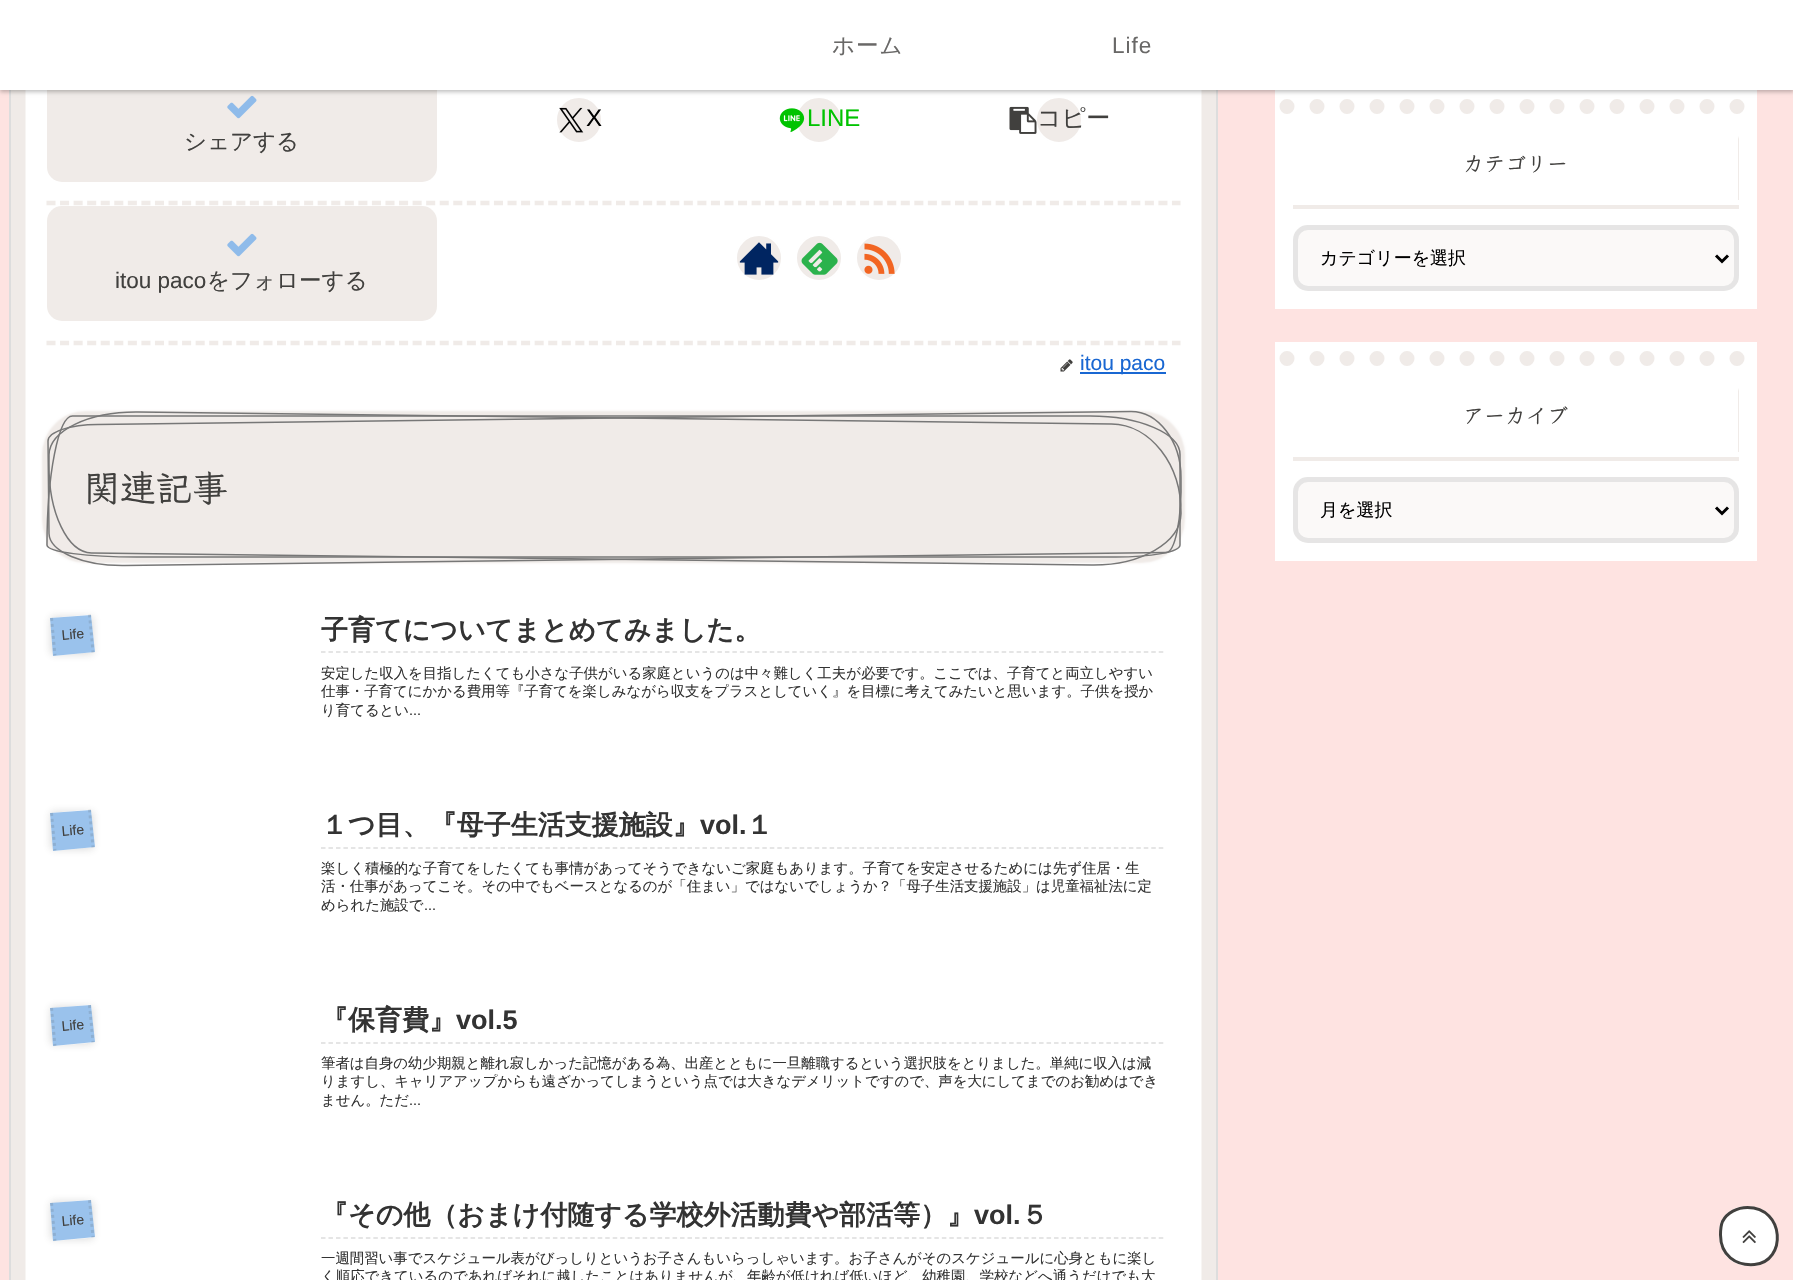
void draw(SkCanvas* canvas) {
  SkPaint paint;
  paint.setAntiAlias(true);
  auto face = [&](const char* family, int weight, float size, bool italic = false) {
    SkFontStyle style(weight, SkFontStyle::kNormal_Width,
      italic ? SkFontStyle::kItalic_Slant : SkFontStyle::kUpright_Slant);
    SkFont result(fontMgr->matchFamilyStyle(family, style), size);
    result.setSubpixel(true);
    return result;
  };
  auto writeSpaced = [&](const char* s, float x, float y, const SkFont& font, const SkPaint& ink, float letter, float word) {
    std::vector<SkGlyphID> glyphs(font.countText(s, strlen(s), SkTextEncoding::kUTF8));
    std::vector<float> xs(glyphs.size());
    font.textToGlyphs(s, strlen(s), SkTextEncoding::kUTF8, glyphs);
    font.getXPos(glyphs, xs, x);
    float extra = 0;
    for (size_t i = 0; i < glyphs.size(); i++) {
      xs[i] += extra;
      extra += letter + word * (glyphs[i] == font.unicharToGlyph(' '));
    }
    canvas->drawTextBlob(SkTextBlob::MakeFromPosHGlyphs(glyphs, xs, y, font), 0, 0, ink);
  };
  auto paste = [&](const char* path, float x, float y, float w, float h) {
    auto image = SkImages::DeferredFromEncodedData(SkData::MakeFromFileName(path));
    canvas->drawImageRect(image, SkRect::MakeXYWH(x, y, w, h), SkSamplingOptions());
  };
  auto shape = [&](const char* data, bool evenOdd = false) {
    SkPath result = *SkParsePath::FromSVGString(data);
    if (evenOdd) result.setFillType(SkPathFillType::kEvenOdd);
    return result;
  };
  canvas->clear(0xfffee3e1);
  paint.setColor(0xffffffff);
  canvas->drawRect(SkRect::MakeXYWH(25, 90, 1177, 1190), paint);
  paint.setStroke(true);
  paint.setStrokeWidth(15);
  paint.setColor(0xfff0ebe8);
  canvas->drawPath(shape("M18-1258.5H1209V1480.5H18Z"), paint);
  paint.setStrokeWidth(2);
  paint.setColor(0xffdddddd);
  canvas->drawRect(SkRect::MakeXYWH(10, -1, 1207, 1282), paint);
  paint.setStroke(false);
  paint.setColor(0xfff0ebe8);
  canvas->drawCircle(579, 120, 23, paint);
  paint.setStroke(true);
  paint.setColor(0xffffffff);
  canvas->drawCircle(579, 120, 23, paint);
  paint.setStroke(false);
  paint.setColor(0xfff0ebe8);
  canvas->drawCircle(819, 120, 23, paint);
  paint.setStroke(true);
  paint.setColor(0xffffffff);
  canvas->drawCircle(819, 120, 23, paint);
  paint.setStroke(false);
  paint.setColor(0xfff0ebe8);
  canvas->drawCircle(1059, 120, 23, paint);
  paint.setStroke(true);
  paint.setColor(0xffffffff);
  canvas->drawCircle(1059, 120, 23, paint);
  paint.setStroke(false);
  paint.setColor(0xfff0ebe8);
  canvas->drawRoundRect(SkRect::MakeXYWH(47, 68, 390, 114), 15, 15, paint);
  paste("img/4.png", 227, 95, 30, 24);
  paint.setColor(0xffffffff);
  canvas->drawRect(SkRect::MakeXYWH(1275, 90, 482, 219), paint);
  paint.setColor(0x40000000);
  paint.setMaskFilter(SkMaskFilter::MakeBlur(kNormal_SkBlurStyle, 2));
  canvas->drawRect(SkRect::MakeXYWH(0, 2, 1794, 90), paint);
  paint.setMaskFilter(nullptr);
  paint.setColor(0xffffffff);
  canvas->drawRect(SkRect::MakeXYWH(0, 0, 1793, 90), paint);
  paint.setStroke(true);
  paint.setStrokeWidth(4.5f);
  paint.setColor(0xfff0ebe8);
  paint.setPathEffect(SkDashPathEffect::Make({{9, 4.56f}}, 0));
  canvas->drawPath(shape("M46.5 203H1180.5"), paint);
  paint.setPathEffect(nullptr);
  paste("img/1.png", 559, 107, 25, 26);
  paste("img/2.png", 779, 108, 26, 25);
  paste("img/3.png", 1009, 106, 28, 28);
  paint.setPathEffect(SkDashPathEffect::Make({{9, 4.56f}}, 0));
  canvas->drawPath(shape("M46.5 343H1180.5"), paint);
  paint.setPathEffect(nullptr);
  paint.setStroke(false);
  canvas->drawRoundRect(SkRect::MakeXYWH(47, 206, 390, 115), 15, 15, paint);
  paste("img/4.png", 227, 233, 30, 24);
  canvas->drawCircle(759, 258, 23, paint);
  paint.setStroke(true);
  paint.setStrokeWidth(2);
  paint.setColor(0xffffffff);
  canvas->drawCircle(759, 258, 23, paint);
  paste("img/5.png", 739, 242, 40, 33);
  paint.setStroke(false);
  paint.setColor(0xfff0ebe8);
  canvas->drawCircle(819, 258, 23, paint);
  paint.setStroke(true);
  paint.setColor(0xffffffff);
  canvas->drawCircle(819, 258, 23, paint);
  paste("img/6.png", 801, 242, 37, 33);
  paint.setStroke(false);
  paint.setColor(0xfff0ebe8);
  canvas->drawCircle(879, 258, 23, paint);
  paint.setStroke(true);
  paint.setColor(0xffffffff);
  canvas->drawCircle(879, 258, 23, paint);
  paste("img/7.png", 864, 243, 31, 31);
  paste("img/8.png", 1060, 359, 13, 13);
  paint.setStroke(false);
  paint.setColor(0xff1967d2);
  canvas->drawRect(SkRect::MakeXYWH(1080, 372, 86, 2), paint);
  paint.setColor(0xfff0ebe8);
  paint.setMaskFilter(SkMaskFilter::MakeBlur(kNormal_SkBlurStyle, 1));
  canvas->drawRoundRect(SkRect::MakeXYWH(42, 411, 1143, 152), 44, 44, paint);
  paint.setMaskFilter(nullptr);
  canvas->drawPath(shape("M72 416H1090C1140 416 1180 433 1180 454V545C1180 552 1152 558 1116 558H137C87 558 46 552 46 545C46 473 58 416 72 416Z"), paint);
  paint.setStroke(true);
  paint.setStrokeWidth(1.5f);
  paint.setColor(0xff777777);
  canvas->drawPath(shape("M72.5 416H1090C1139.5 416 1180 433.5 1180 454.5V545C1180 552 1151 557 1115.5 557H137C87.5 557 47 552 47 545C47 474 58.5 416 72.5 416Z"), paint);
  canvas->save();
  canvas->clipPath(shape("M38 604H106V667H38ZM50 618L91 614.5L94.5 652L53.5 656Z", true), true);
  paint.setStroke(false);
  paint.setColor(0x3341403e);
  paint.setMaskFilter(SkMaskFilter::MakeBlur(kNormal_SkBlurStyle, 4));
  canvas->drawRect(SkRect::MakeXYWH(51, 617, 42, 37), paint);
  paint.setMaskFilter(nullptr);
  canvas->restore();
  paint.setColor(0xe68fbbea);
  canvas->drawPath(shape("M50 618L91 615L95 652L53 656Z"), paint);
  paint.setStroke(true);
  paint.setStrokeWidth(3);
  paint.setColor(0x2641403e);
  paint.setPathEffect(SkDashPathEffect::Make({{3, 3}}, 0));
  canvas->drawPath(shape("M89.5 614.5L93 652.5M51.5 618L55 655.5"), paint);
  paint.setPathEffect(nullptr);
  paint.setStrokeWidth(1.5f);
  paint.setColor(0xffdddddd);
  paint.setPathEffect(SkDashPathEffect::Make({{4.5f, 2.98f}}, 0));
  canvas->drawPath(shape("M321 652H1164"), paint);
  paint.setPathEffect(nullptr);
  canvas->save();
  canvas->clipPath(shape("M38 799H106V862H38ZM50 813L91 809.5L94.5 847L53.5 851Z", true), true);
  paint.setStroke(false);
  paint.setColor(0x3341403e);
  paint.setMaskFilter(SkMaskFilter::MakeBlur(kNormal_SkBlurStyle, 4));
  canvas->drawRect(SkRect::MakeXYWH(51, 812, 42, 37), paint);
  paint.setMaskFilter(nullptr);
  canvas->restore();
  paint.setColor(0xe68fbbea);
  canvas->drawPath(shape("M50 813L91 810L95 847L53 851Z"), paint);
  paint.setStroke(true);
  paint.setStrokeWidth(3);
  paint.setColor(0x2641403e);
  paint.setPathEffect(SkDashPathEffect::Make({{3, 3}}, 0));
  canvas->drawPath(shape("M89.5 809.5L93 847.5M51.5 813L55 850.5"), paint);
  paint.setPathEffect(nullptr);
  paint.setStrokeWidth(1.5f);
  paint.setColor(0xffdddddd);
  paint.setPathEffect(SkDashPathEffect::Make({{4.5f, 2.98f}}, 0));
  canvas->drawPath(shape("M321 848H1164"), paint);
  paint.setPathEffect(nullptr);
  canvas->save();
  canvas->clipPath(shape("M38 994H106V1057H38ZM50 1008.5L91 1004.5L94.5 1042.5L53.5 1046Z", true), true);
  paint.setStroke(false);
  paint.setColor(0x3341403e);
  paint.setMaskFilter(SkMaskFilter::MakeBlur(kNormal_SkBlurStyle, 4));
  canvas->drawRect(SkRect::MakeXYWH(51, 1007, 42, 37), paint);
  paint.setMaskFilter(nullptr);
  canvas->restore();
  paint.setColor(0xe68fbbea);
  canvas->drawPath(shape("M50 1008L91 1005L95 1042L53 1046Z"), paint);
  paint.setStroke(true);
  paint.setStrokeWidth(3);
  paint.setColor(0x2641403e);
  paint.setPathEffect(SkDashPathEffect::Make({{3, 3}}, 0));
  canvas->drawPath(shape("M89.5 1005L93 1042.5M51.5 1008L55 1046"), paint);
  paint.setPathEffect(nullptr);
  paint.setStrokeWidth(1.5f);
  paint.setColor(0xffdddddd);
  paint.setPathEffect(SkDashPathEffect::Make({{4.5f, 2.98f}}, 0));
  canvas->drawPath(shape("M321 1043H1164"), paint);
  paint.setPathEffect(nullptr);
  canvas->save();
  canvas->clipPath(shape("M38 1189H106V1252H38ZM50 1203.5L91 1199.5L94.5 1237.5L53.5 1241Z", true), true);
  paint.setStroke(false);
  paint.setColor(0x3341403e);
  paint.setMaskFilter(SkMaskFilter::MakeBlur(kNormal_SkBlurStyle, 4));
  canvas->drawRect(SkRect::MakeXYWH(51, 1202, 42, 37), paint);
  paint.setMaskFilter(nullptr);
  canvas->restore();
  paint.setColor(0xe68fbbea);
  canvas->drawPath(shape("M50 1203L91 1200L95 1237L53 1241Z"), paint);
  paint.setStroke(true);
  paint.setStrokeWidth(3);
  paint.setColor(0x2641403e);
  paint.setPathEffect(SkDashPathEffect::Make({{3, 3}}, 0));
  canvas->drawPath(shape("M89.5 1200L93 1237.5M51.5 1203L55 1241"), paint);
  paint.setPathEffect(nullptr);
  paint.setStrokeWidth(1.5f);
  paint.setColor(0xffdddddd);
  paint.setPathEffect(SkDashPathEffect::Make({{4.5f, 2.98f}}, 0));
  canvas->drawPath(shape("M321 1238H1164"), paint);
  paint.setPathEffect(nullptr);
  paint.setStrokeWidth(15);
  paint.setStrokeCap(SkPaint::kRound_Cap);
  paint.setColor(0xfff0ebe8);
  paint.setPathEffect(SkDashPathEffect::Make({{0, 30}}, 0));
  canvas->drawPath(shape("M1287 106.5H1744.5"), paint);
  paint.setPathEffect(nullptr);
  paint.setStroke(false);
  canvas->drawPath(shape("M1293 204V209H1739V139L1738 136V204Z"), paint);
  paint.setColor(0xffffffff);
  canvas->drawRect(SkRect::MakeXYWH(1293, 200, 446, 5), paint);
  paint.setColor(0xfffbf9f8);
  canvas->drawRoundRect(SkRect::MakeXYWH(1293, 225, 446, 66), 15, 15, paint);
  paint.setStroke(true);
  paint.setStrokeWidth(5);
  paint.setStrokeCap(SkPaint::kButt_Cap);
  paint.setColor(0xb3dddddd);
  canvas->drawRoundRect(SkRect::MakeXYWH(1295.5f, 227.5f, 441, 61), 12.5f, 12.5f, paint);
  paint.setStrokeWidth(3);
  paint.setColor(0xff000000);
  canvas->drawPath(shape("M1716 255.5L1722 261.5L1728 255.5"), paint);
  paint.setStroke(false);
  paint.setColor(0xffffffff);
  canvas->drawRect(SkRect::MakeXYWH(1275, 342, 482, 219), paint);
  paint.setStroke(true);
  paint.setStrokeWidth(15);
  paint.setStrokeCap(SkPaint::kRound_Cap);
  paint.setColor(0xfff0ebe8);
  paint.setPathEffect(SkDashPathEffect::Make({{0, 30}}, 0));
  canvas->drawPath(shape("M1287 358.5H1744.5"), paint);
  paint.setPathEffect(nullptr);
  paint.setStroke(false);
  canvas->drawPath(shape("M1293 456V461H1739V391L1738 388V456Z"), paint);
  paint.setColor(0xffffffff);
  canvas->drawRect(SkRect::MakeXYWH(1293, 452, 446, 5), paint);
  paint.setColor(0xfffbf9f8);
  canvas->drawRoundRect(SkRect::MakeXYWH(1293, 477, 446, 66), 15, 15, paint);
  paint.setStroke(true);
  paint.setStrokeWidth(5);
  paint.setStrokeCap(SkPaint::kButt_Cap);
  paint.setColor(0xb3dddddd);
  canvas->drawRoundRect(SkRect::MakeXYWH(1295.5f, 479.5f, 441, 61), 12.5f, 12.5f, paint);
  paint.setStrokeWidth(3);
  paint.setColor(0xff000000);
  canvas->drawPath(shape("M1716 507.5L1722 513.5L1728 507.5"), paint);
  paint.setStroke(false);
  paint.setColor(0xffffffff);
  canvas->drawPath(shape("M1747 1206C1787 1206 1789 1263 1754 1266C1735 1268 1719 1256 1719 1235C1719 1230 1719 1226 1721 1221C1726 1211 1737 1206 1747 1206Z"), paint);
  paint.setStroke(true);
  paint.setColor(0xff41403e);
  canvas->drawPath(shape("M1747.5 1207.5C1785 1207.5 1787 1261.5 1754.5 1264.5C1735.5 1266 1720.5 1255 1720.5 1235C1720.5 1230.5 1720.5 1226 1722.5 1221.5C1727 1212.5 1737.5 1207.5 1747.5 1207.5Z"), paint);
  paste("img/9.png", 1742, 1230, 14, 14);
  auto f0 = face("WenQuanYi Zen Hei", 500, 22.5f);
  paint.setStroke(false);
  paint.setColor(0xff696867);
  writeSpaced("ホーム", 832, 53, f0, paint, 1, 0);
  auto f1 = face("Liberation Sans", 400, 22.5f);
  writeSpaced("Life", 1112, 53, f1, paint, 1, 0);
  auto f2 = face("Liberation Sans", 400, 24);
  paint.setColor(0xff000000);
  canvas->drawString("X", 586, 126, f2, paint);
  paint.setColor(0xff00c300);
  canvas->drawString("LINE", 807, 126, f2, paint);
  auto f3 = face("WenQuanYi Zen Hei", 500, 24);
  paint.setColor(0xff41403e);
  canvas->drawString("コピー", 1037, 126, f3, paint);
  canvas->drawString("シェアする", 184, 149, f0, paint);
  canvas->drawString("itou paco", 115, 288, f1, paint);
  canvas->drawString("をフォローする", 207, 288, f0, paint);
  auto f4 = face("Liberation Sans", 400, 21);
  paint.setColor(0xff1967d2);
  canvas->drawString("itou paco", 1080, 370, f4, paint);
  auto f5 = face("Klee One", 600, 36);
  paint.setColor(0xff41403e);
  canvas->drawString("関連記事", 84, 501, f5, paint);
  paint.setStroke(true);
  paint.setStrokeWidth(1.5f);
  paint.setColor(0xff777777);
  canvas->drawPath(shape("M97.5 424.5L1131 411.5C1158 411.5 1181 441 1181 477.5C1182 519 1175 552.5 1166 552.5L124.5 565.5C83 566 49.5 551.5 49 533.5L48 441C48 432 70 424.5 97.5 424.5Z"), paint);
  canvas->drawPath(shape("M138 412L1111.5 424C1150.5 424.5 1181.5 464.5 1181 513.5C1180.5 542.5 1141 565.5 1092 565L91.5 553C67.5 552.5 48.5 513 49 464V455C49.5 430.5 89 411.5 138 412Z"), paint);
  auto f6 = face("Liberation Sans", 400, 14);
  paint.setStroke(false);
  paint.setColor(0xff41403e);
  canvas->save();
  canvas->rotate(-5, 62, 640);
  canvas->drawString("Life", 62, 640, f6, paint);
  canvas->restore();
  auto f7 = face("WenQuanYi Zen Hei", 700, 27);
  paint.setColor(0xff333333);
  canvas->drawString("子育てについてまとめてみました。", 321, 639, f7, paint);
  auto f8 = face("WenQuanYi Zen Hei", 500, 14.4f);
  {
    const struct { const char* s; float x, y; } items[] = {
      {"安定した収入を目指したくても小さな子供がいる家庭というのは中々難しく工夫が必要です。ここでは、子育てと両立しやすい", 321, 678},
      {"仕事・子育てにかかる費用等『子育てを楽しみながら収支をプラスとしていく』を目標に考えてみたいと思います。子供を授か", 321, 696},
      {"り育てるとい", 321, 715},
    };
    for (auto [s, x, y] : items) {
      canvas->drawString(s, x, y, f8, paint);
    }
  }
  auto f9 = face("Liberation Sans", 400, 14.4f);
  canvas->drawString("...", 409, 715, f9, paint);
  paint.setColor(0xff41403e);
  canvas->save();
  canvas->rotate(-5, 62, 836);
  canvas->drawString("Life", 62, 836, f6, paint);
  canvas->restore();
  paint.setColor(0xff333333);
  canvas->drawString("１つ目、『母子生活支援施設』", 321, 834, f7, paint);
  auto f10 = face("Liberation Sans", 700, 27);
  canvas->drawString("vol.", 700, 834, f10, paint);
  canvas->drawString("１", 746, 834, f7, paint);
  {
    const struct { const char* s; float x, y; } items[] = {
      {"楽しく積極的な子育てをしたくても事情があってそうできないご家庭もあります。子育てを安定させるためには先ず住居・生", 321, 873},
      {"活・仕事があってこそ。その中でもベースとなるのが「住まい」ではないでしょうか？「母子生活支援施設」は児童福祉法に定", 321, 891},
      {"められた施設で", 321, 910},
    };
    for (auto [s, x, y] : items) {
      canvas->drawString(s, x, y, f8, paint);
    }
  }
  canvas->drawString("...", 424, 910, f9, paint);
  paint.setColor(0xff41403e);
  canvas->save();
  canvas->rotate(-5, 62, 1031);
  canvas->drawString("Life", 62, 1031, f6, paint);
  canvas->restore();
  paint.setColor(0xff333333);
  canvas->drawString("『保育費』", 321, 1029, f7, paint);
  canvas->drawString("vol.5", 456, 1029, f10, paint);
  {
    const struct { const char* s; float x, y; } items[] = {
      {"筆者は自身の幼少期親と離れ寂しかった記憶がある為、出産とともに一旦離職するという選択肢をとりました。単純に収入は減", 321, 1068},
      {"りますし、キャリアアップからも遠ざかってしまうという点では大きなデメリットですので、声を大にしてまでのお勧めはでき", 321, 1086},
      {"ません。ただ", 321, 1105},
    };
    for (auto [s, x, y] : items) {
      canvas->drawString(s, x, y, f8, paint);
    }
  }
  canvas->drawString("...", 409, 1105, f9, paint);
  paint.setColor(0xff41403e);
  canvas->save();
  canvas->rotate(-5, 62, 1226);
  canvas->drawString("Life", 62, 1226, f6, paint);
  canvas->restore();
  paint.setColor(0xff333333);
  canvas->drawString("『その他（おまけ付随する学校外活動費や部活等）』", 321, 1224, f7, paint);
  canvas->drawString("vol.", 974, 1224, f10, paint);
  canvas->drawString("５", 1021, 1224, f7, paint);
  canvas->drawString("一週間習い事でスケジュール表がびっしりというお子さんもいらっしゃいます。お子さんがそのスケジュールに心身ともに楽し", 321, 1263, f8, paint);
  canvas->drawString("く順応できているのであればそれに越したことはありませんが、年齢が低ければ低いほど、幼稚園、学校などへ通うだけでも大", 321, 1281, f8, paint);
  auto f11 = face("Klee One", 600, 21);
  paint.setColor(0xff41403e);
  canvas->drawString("カテゴリー", 1463, 171, f11, paint);
  auto f12 = face("WenQuanYi Zen Hei", 500, 18);
  paint.setColor(0xff000000);
  canvas->drawString("カテゴリーを選択", 1320, 264, f12, paint);
  paint.setColor(0xff41403e);
  canvas->drawString("アーカイブ", 1463, 423, f11, paint);
  paint.setColor(0xff000000);
  canvas->drawString("月を選択", 1320, 516, f12, paint);
}
